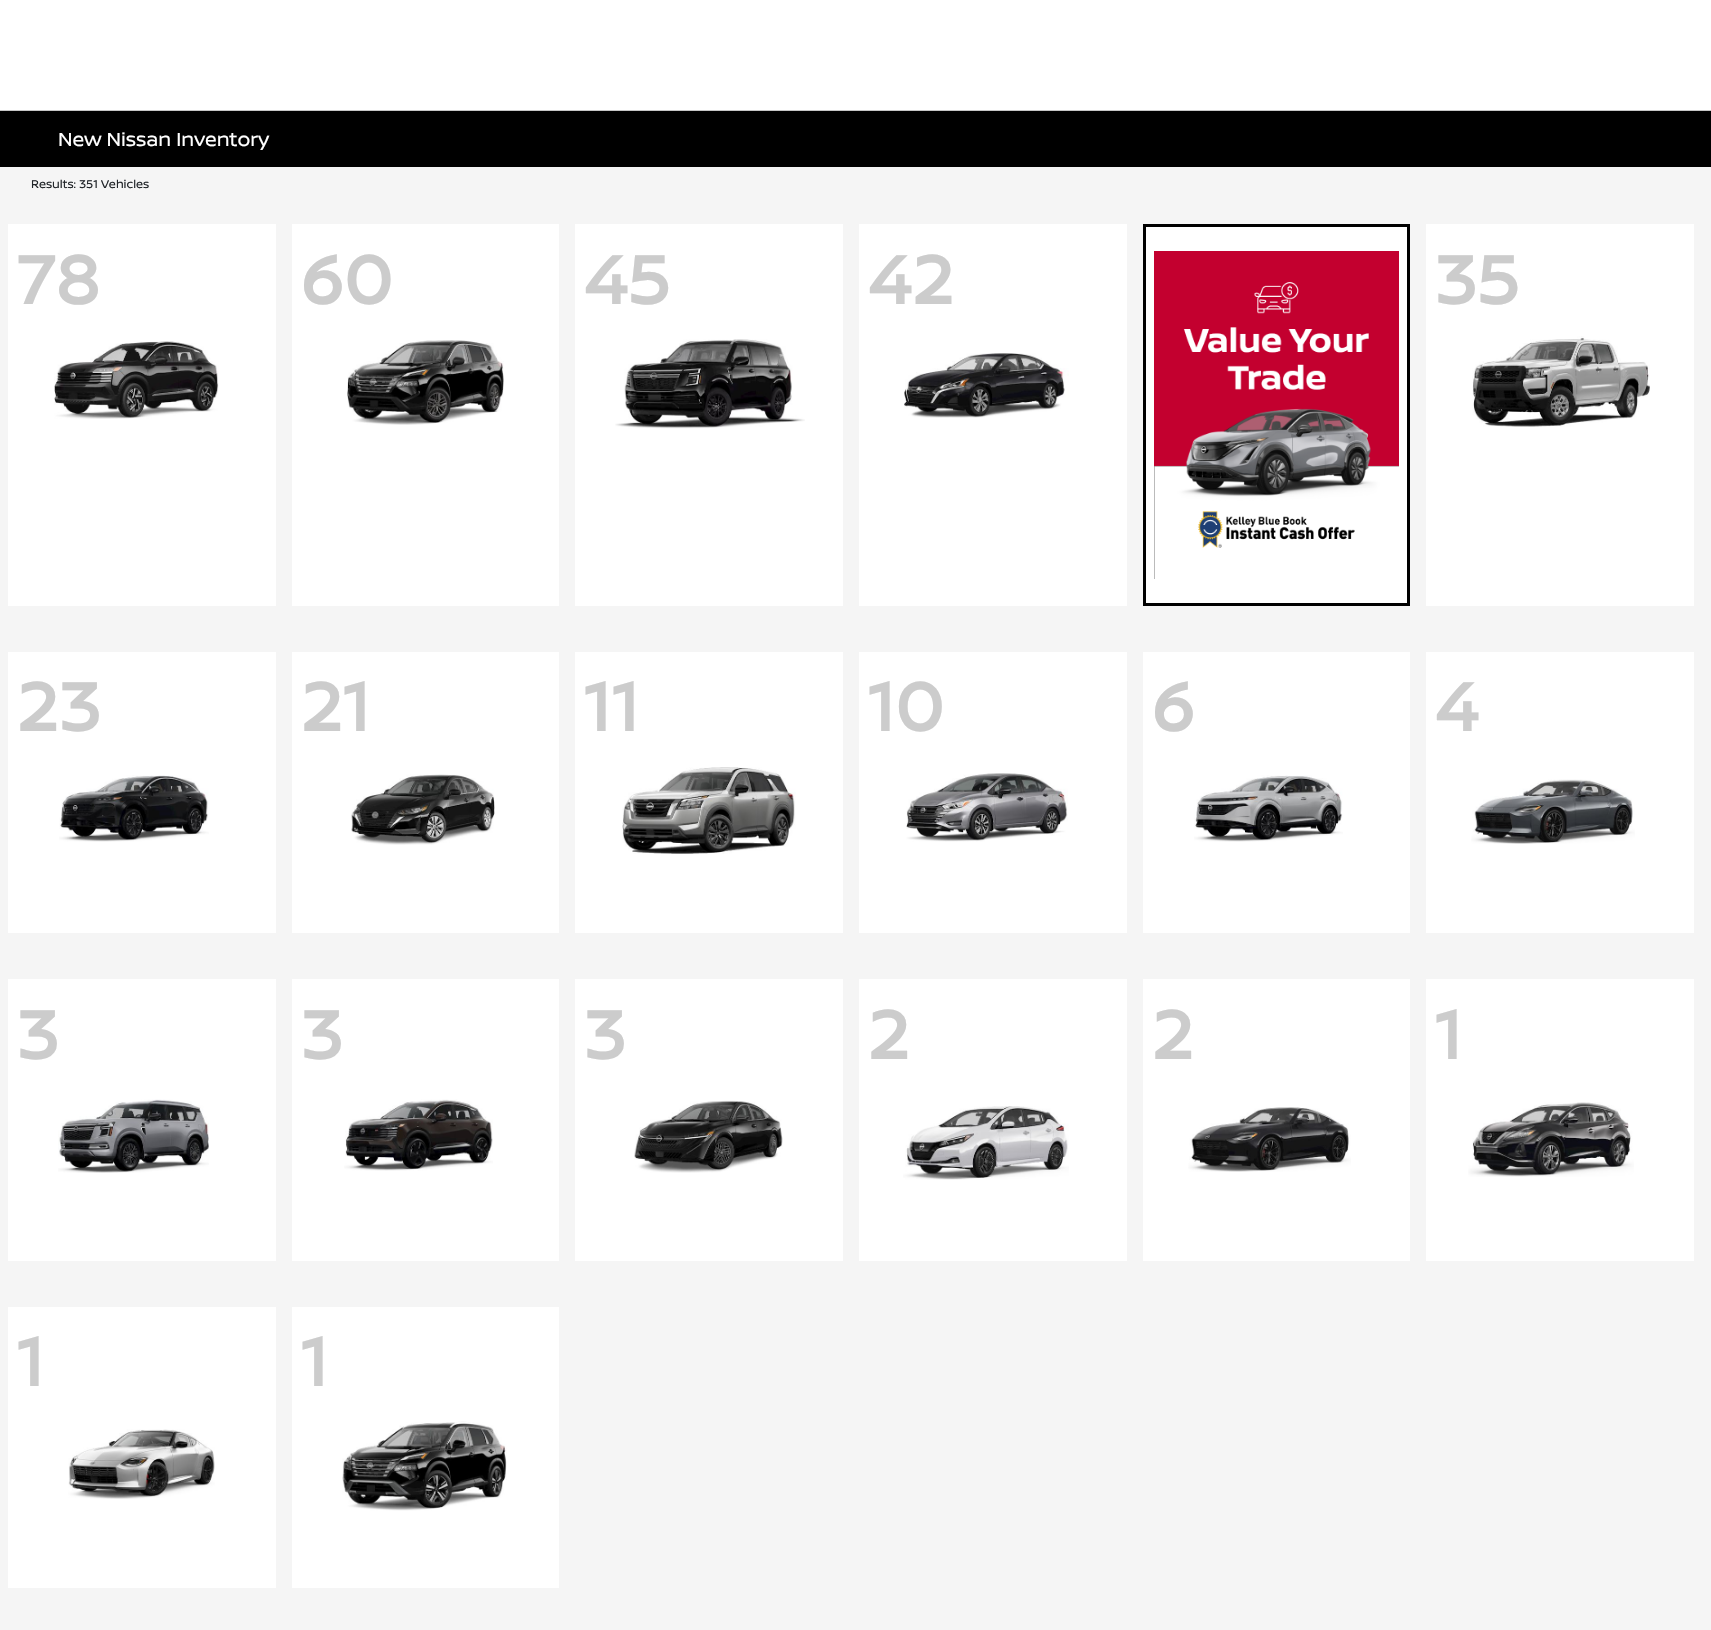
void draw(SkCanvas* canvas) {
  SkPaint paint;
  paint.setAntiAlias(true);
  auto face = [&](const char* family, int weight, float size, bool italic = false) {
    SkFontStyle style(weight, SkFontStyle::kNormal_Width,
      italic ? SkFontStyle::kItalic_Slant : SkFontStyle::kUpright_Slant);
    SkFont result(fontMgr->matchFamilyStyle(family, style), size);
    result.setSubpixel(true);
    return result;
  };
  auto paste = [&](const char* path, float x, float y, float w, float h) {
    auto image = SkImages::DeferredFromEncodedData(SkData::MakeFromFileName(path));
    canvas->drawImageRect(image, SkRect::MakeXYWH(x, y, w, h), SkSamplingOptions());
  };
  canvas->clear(0xffffffff);
  {
    const struct { float x, y, w, h; SkColor color; } items[] = {
      {0, 167, 1711, 1463, 0xfff5f5f5},
      {0, 111, 1711, 56, 0xff000000},
      {0, 110, 1711, 1, 0xffc6c6c6},
      {8, 224, 268, 382, 0xffffffff},
    };
    for (auto [x, y, w, h, color] : items) {
      paint.setColor(color);
      canvas->drawRect(SkRect::MakeXYWH(x, y, w, h), paint);
    }
  }
  paste("img/1.png", 54, 341, 165, 78);
  canvas->drawRect(SkRect::MakeXYWH(292, 224, 267, 382), paint);
  paste("img/2.png", 347, 340, 157, 85);
  canvas->drawRect(SkRect::MakeXYWH(575, 224, 268, 382), paint);
  paste("img/3.png", 615, 339, 190, 90);
  canvas->drawRect(SkRect::MakeXYWH(859, 224, 268, 382), paint);
  paste("img/4.png", 904, 353, 165, 65);
  paint.setStroke(true);
  paint.setStrokeWidth(3);
  paint.setColor(0xff000000);
  canvas->drawRect(SkRect::MakeXYWH(1144.5f, 225.5f, 264, 379), paint);
  paint.setStroke(false);
  paint.setColor(0xffffffff);
  canvas->drawRect(SkRect::MakeXYWH(1146, 227, 261, 376), paint);
  paste("img/5.png", 1154, 251, 245, 328);
  canvas->drawRect(SkRect::MakeXYWH(1426, 224, 268, 382), paint);
  paste("img/6.png", 1472, 336, 178, 91);
  canvas->drawRect(SkRect::MakeXYWH(8, 652, 268, 281), paint);
  paste("img/7.png", 59, 775, 150, 67);
  canvas->drawRect(SkRect::MakeXYWH(292, 652, 267, 281), paint);
  paste("img/8.png", 351, 774, 144, 71);
  canvas->drawRect(SkRect::MakeXYWH(575, 652, 268, 281), paint);
  paste("img/9.png", 622, 767, 174, 87);
  canvas->drawRect(SkRect::MakeXYWH(859, 652, 268, 281), paint);
  paste("img/10.png", 906, 773, 162, 69);
  canvas->drawRect(SkRect::MakeXYWH(1143, 652, 267, 281), paint);
  paste("img/11.png", 1194, 775, 149, 67);
  canvas->drawRect(SkRect::MakeXYWH(1426, 652, 268, 281), paint);
  paste("img/12.png", 1471, 779, 164, 65);
  canvas->drawRect(SkRect::MakeXYWH(8, 979, 268, 282), paint);
  paste("img/13.png", 58, 1099, 151, 74);
  canvas->drawRect(SkRect::MakeXYWH(292, 979, 267, 282), paint);
  paste("img/14.png", 344, 1099, 149, 72);
  canvas->drawRect(SkRect::MakeXYWH(575, 979, 268, 282), paint);
  paste("img/15.png", 634, 1100, 149, 73);
  canvas->drawRect(SkRect::MakeXYWH(859, 979, 268, 282), paint);
  paste("img/16.png", 903, 1106, 166, 74);
  canvas->drawRect(SkRect::MakeXYWH(1143, 979, 267, 282), paint);
  paste("img/17.png", 1188, 1107, 163, 65);
  canvas->drawRect(SkRect::MakeXYWH(1426, 979, 268, 282), paint);
  paste("img/18.png", 1468, 1102, 166, 75);
  canvas->drawRect(SkRect::MakeXYWH(8, 1307, 268, 281), paint);
  paste("img/19.png", 68, 1429, 147, 70);
  canvas->drawRect(SkRect::MakeXYWH(292, 1307, 267, 281), paint);
  paste("img/20.png", 342, 1421, 165, 90);
  auto f0 = face("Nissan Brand", 400, 20);
  canvas->drawString("New Nissan Inventory", 58, 146, f0, paint);
  auto f1 = face("Nissan Brand", 400, 12);
  paint.setColor(0xff212529);
  canvas->drawString("Results: 351 Vehicles", 31, 188, f1, paint);
  auto f2 = face("Nissan Brand", 700, 72);
  paint.setColor(0xffcccccc);
  {
    const struct { const char* s; float x, y; } items[] = {
      {"78", 16, 304},
      {"60", 300, 304},
      {"45", 583, 304},
      {"42", 867, 304},
      {"35", 1434, 304},
      {"23", 16, 731},
      {"21", 300, 731},
      {"11", 583, 731},
      {"10", 867, 731},
      {"6", 1151, 731},
      {"4", 1434, 731},
      {"3", 16, 1059},
      {"3", 300, 1059},
      {"3", 583, 1059},
      {"2", 867, 1059},
      {"2", 1151, 1059},
      {"1", 1434, 1059},
      {"1", 16, 1386},
      {"1", 300, 1386},
    };
    for (auto [s, x, y] : items) {
      canvas->drawString(s, x, y, f2, paint);
    }
  }
}
